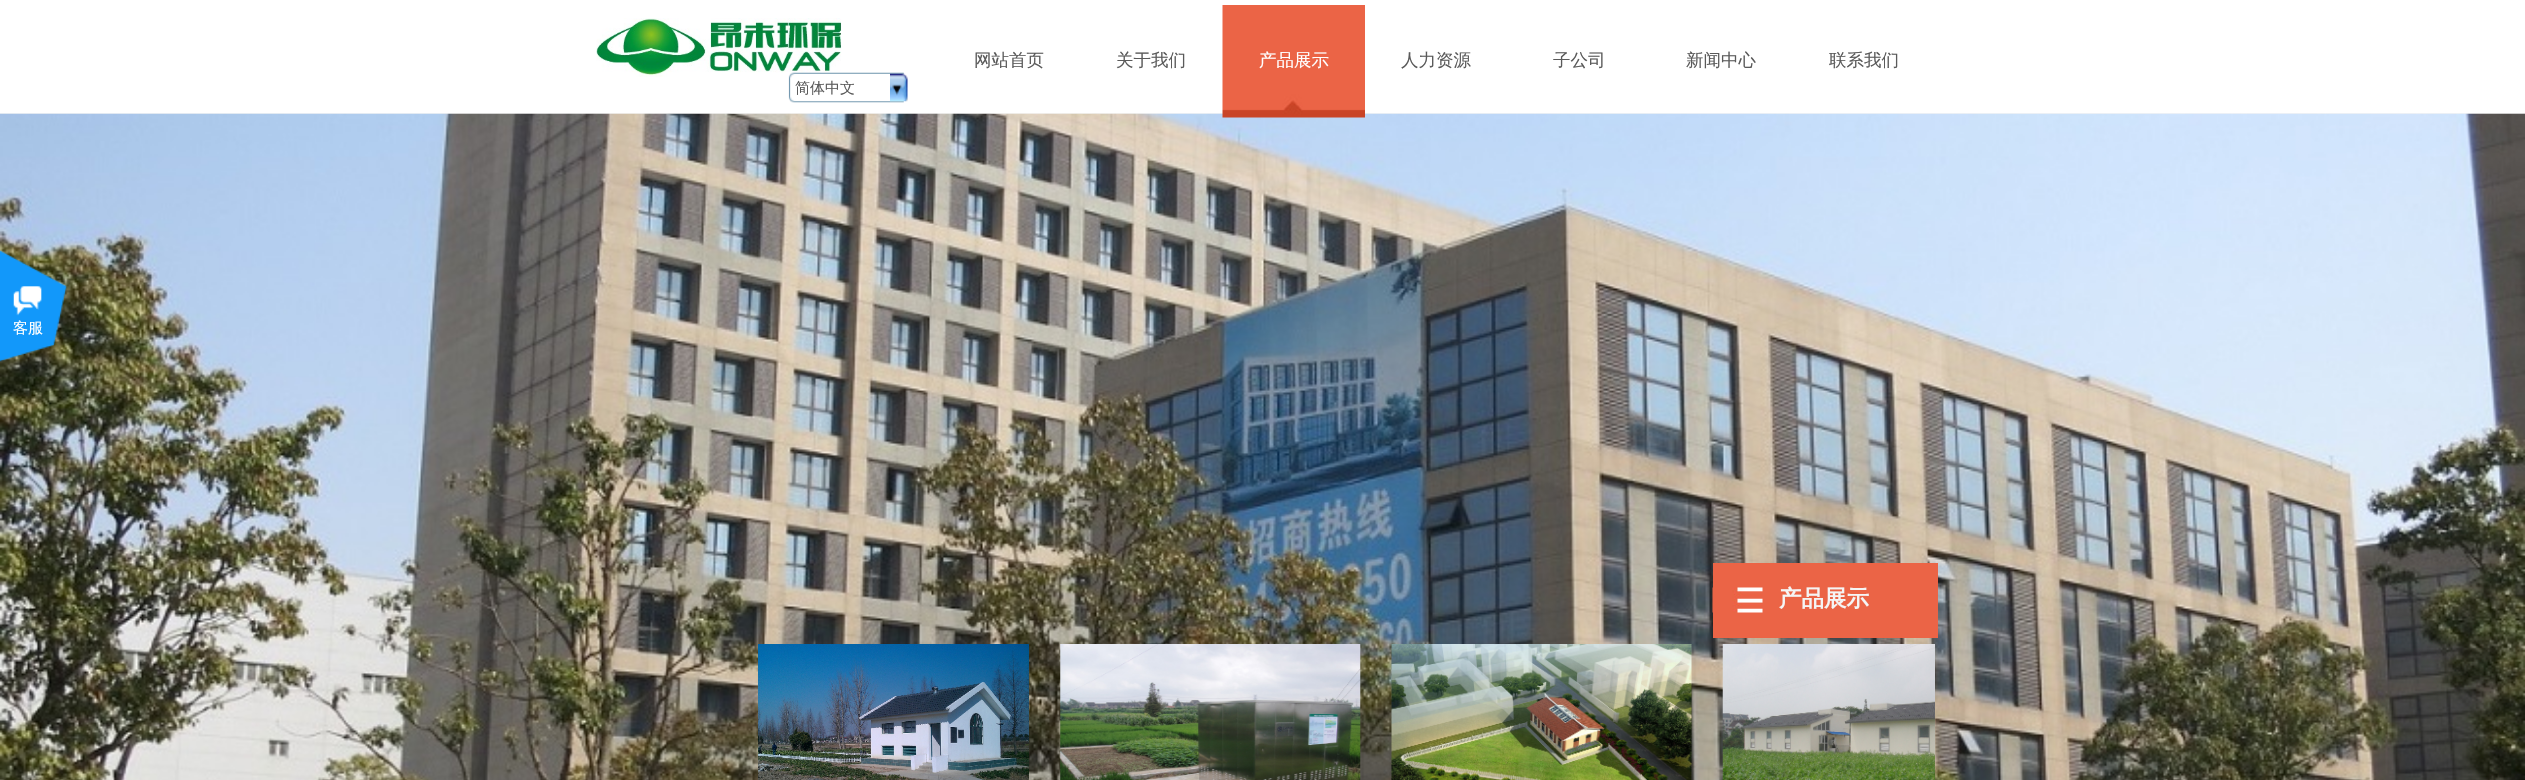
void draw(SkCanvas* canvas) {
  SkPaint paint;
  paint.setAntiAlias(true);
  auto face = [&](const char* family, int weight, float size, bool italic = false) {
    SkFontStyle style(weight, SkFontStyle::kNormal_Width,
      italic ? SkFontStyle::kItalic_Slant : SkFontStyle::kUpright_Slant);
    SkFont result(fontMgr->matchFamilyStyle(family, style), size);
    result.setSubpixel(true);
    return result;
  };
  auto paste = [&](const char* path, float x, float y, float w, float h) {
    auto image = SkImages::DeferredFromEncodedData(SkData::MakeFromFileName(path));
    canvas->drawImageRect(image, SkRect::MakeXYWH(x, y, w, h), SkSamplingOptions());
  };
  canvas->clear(0xfff5f5f5);
  paste("img/6.png", 0, 113, 2525, 667);
  paste("img/1.png", 0, 250, 67, 112);
  paint.setColor(0xffffffff);
  canvas->drawRect(SkRect::MakeXYWH(0, 0, 2525, 113), paint);
  paste("img/2.png", 596, 18, 246, 59);
  paste("img/3.png", 1222, 5, 143, 113);
  paste("img/4.png", 788, 72, 116, 31);
  paste("img/5.png", 890, 73, 18, 29);
  paint.setColor(0xffeb6446);
  canvas->drawRect(SkRect::MakeXYWH(1713, 563, 225, 75), paint);
  paste("img/7.png", 1712, 587, 51, 26);
  paste("img/8.png", 758, 644, 271, 136);
  paste("img/9.png", 1060, 644, 301, 136);
  paste("img/10.png", 1391, 644, 301, 136);
  paste("img/11.png", 1722, 644, 213, 136);
  auto f0 = face("WenQuanYi Zen Hei", 500, 15);
  paint.setColor(0xffffffff);
  canvas->drawString("客服", 13, 333, f0, paint);
  auto f1 = face("WenQuanYi Zen Hei", 500, 17.5f);
  paint.setColor(0xff5a5a5a);
  canvas->drawString("网站首页", 974, 66, f1, paint);
  canvas->drawString("关于我们", 1116, 66, f1, paint);
  paint.setColor(0xffffffff);
  canvas->drawString("产品展示", 1259, 66, f1, paint);
  paint.setColor(0xff5a5a5a);
  {
    const struct { const char* s; float x, y; } items[] = {
      {"人力资源", 1401, 66},
      {"子公司", 1553, 66},
      {"新闻中心", 1686, 66},
      {"联系我们", 1829, 66},
    };
    for (auto [s, x, y] : items) {
      canvas->drawString(s, x, y, f1, paint);
    }
  }
  canvas->drawString("简体中文", 795, 93, f0, paint);
  auto f2 = face("WenQuanYi Zen Hei", 700, 22.5f);
  paint.setColor(0xfff5f5f5);
  canvas->drawString("产品展示", 1779, 606, f2, paint);
}
